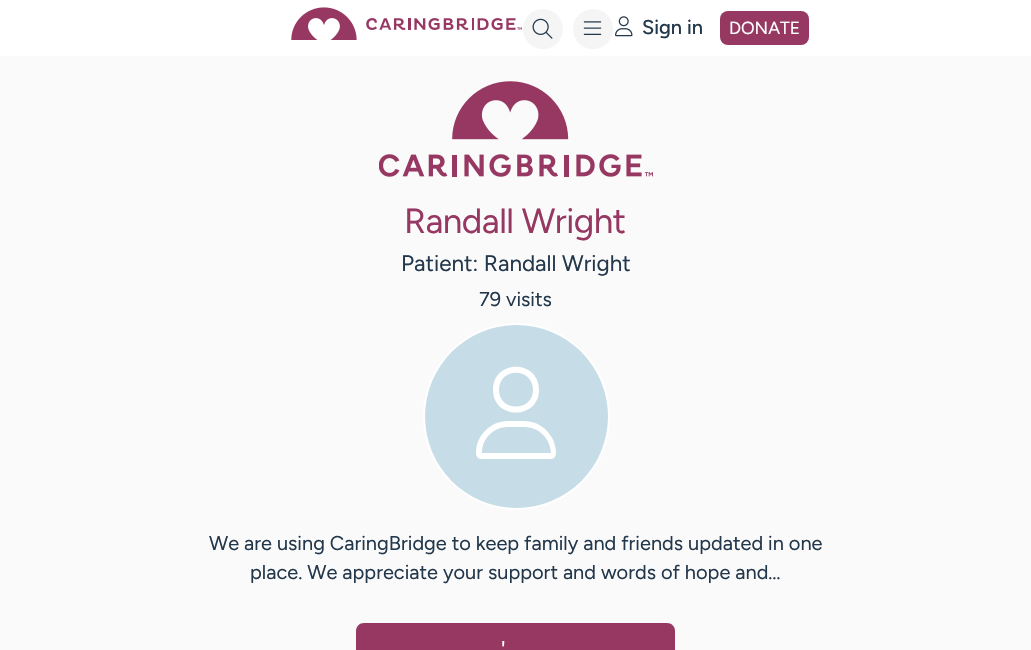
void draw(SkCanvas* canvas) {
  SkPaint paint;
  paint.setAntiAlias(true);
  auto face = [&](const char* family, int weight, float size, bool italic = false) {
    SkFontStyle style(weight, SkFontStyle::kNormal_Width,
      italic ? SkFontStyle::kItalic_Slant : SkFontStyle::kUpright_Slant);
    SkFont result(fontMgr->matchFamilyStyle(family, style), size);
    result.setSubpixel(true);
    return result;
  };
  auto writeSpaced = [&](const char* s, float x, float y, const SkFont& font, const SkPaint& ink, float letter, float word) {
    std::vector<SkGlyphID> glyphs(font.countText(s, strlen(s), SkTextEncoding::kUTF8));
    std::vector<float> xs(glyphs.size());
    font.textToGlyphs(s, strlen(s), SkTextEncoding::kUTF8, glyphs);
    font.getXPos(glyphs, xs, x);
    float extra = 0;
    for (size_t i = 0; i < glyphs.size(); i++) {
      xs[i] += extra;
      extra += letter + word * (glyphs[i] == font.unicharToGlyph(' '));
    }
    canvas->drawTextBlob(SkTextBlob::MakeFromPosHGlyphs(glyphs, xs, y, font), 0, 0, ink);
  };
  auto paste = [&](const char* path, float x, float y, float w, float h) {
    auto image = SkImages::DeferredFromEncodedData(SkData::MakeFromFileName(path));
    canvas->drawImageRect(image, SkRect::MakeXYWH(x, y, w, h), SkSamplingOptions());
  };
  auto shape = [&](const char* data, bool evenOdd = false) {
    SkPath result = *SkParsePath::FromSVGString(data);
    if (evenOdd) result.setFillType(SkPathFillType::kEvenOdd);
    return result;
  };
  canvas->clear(0xfffafafa);
  paint.setColor(0xffffffff);
  canvas->drawRect(SkRect::MakeXYWH(0, 0, 1031, 56), paint);
  paste("img/1.png", 291, 7, 231, 33);
  paint.setColor(0xfff5f5f5);
  canvas->drawCircle(543, 29, 20, paint);
  paste("img/2.png", 532, 18, 21, 21);
  canvas->drawCircle(593, 29, 20, paint);
  paste("img/3.png", 583, 21, 19, 14);
  paste("img/4.png", 615, 16, 18, 21);
  paint.setColor(0xff963862);
  canvas->drawRoundRect(SkRect::MakeXYWH(720, 11, 89, 34), 8, 8, paint);
  paste("img/5.png", 379, 81, 274, 96);
  paint.setStroke(true);
  paint.setStrokeWidth(3);
  paint.setColor(0xffffffff);
  canvas->drawCircle(516.5f, 416.5f, 92, paint);
  paint.setStroke(false);
  paint.setColor(0xffc6dde7);
  canvas->drawCircle(516.5f, 416.5f, 91.5f, paint);
  paint.setColor(0xffffffff);
  canvas->drawPath(shape("M533 390C533 367 499 367 499 390C499 412 533 412 533 390ZM493 390C493 359 539 359 539 390C539 420 493 420 493 390ZM482 453H551C550 438 539 427 524 427H508C494 427 482 438 482 453ZM476 453C476 436 490 421 508 421H524C542 421 556 436 556 453C556 456 554 459 551 459H481C478 459 476 456 476 453Z"), paint);
  paint.setColor(0xff963862);
  canvas->drawPath(shape("M364 623H667C671.5 623 675 626.5 675 631V650H356V631C356 626.5 359.5 623 364 623Z"), paint);
  auto f0 = face("Figtree", 500, 20);
  paint.setColor(0xff24384c);
  canvas->drawString("Sign in", 642, 34, f0, paint);
  auto f1 = face("Figtree", 400, 17.5f);
  paint.setColor(0xffffffff);
  canvas->drawString("DONATE", 729, 34, f1, paint);
  auto f2 = face("Figtree", 400, 35);
  paint.setColor(0xff963862);
  writeSpaced("Randall Wright", 404, 233, f2, paint, -0.5f, 0);
  auto f3 = face("Figtree", 400, 22.5f);
  paint.setColor(0xff24384c);
  canvas->drawString("Patient: Randall Wright", 401, 271, f3, paint);
  auto f4 = face("Figtree", 400, 20);
  {
    const struct { const char* s; float x, y; } items[] = {
      {"79 visits", 479, 306},
      {"We are using CaringBridge to keep family and friends updated in one", 209, 550},
      {"place. We appreciate your support and words of hope and…", 250, 579},
    };
    for (auto [s, x, y] : items) {
      canvas->drawString(s, x, y, f4, paint);
    }
  }
  paint.setColor(0xffffffff);
  canvas->drawString("'", 501, 657, f3, paint);
}
